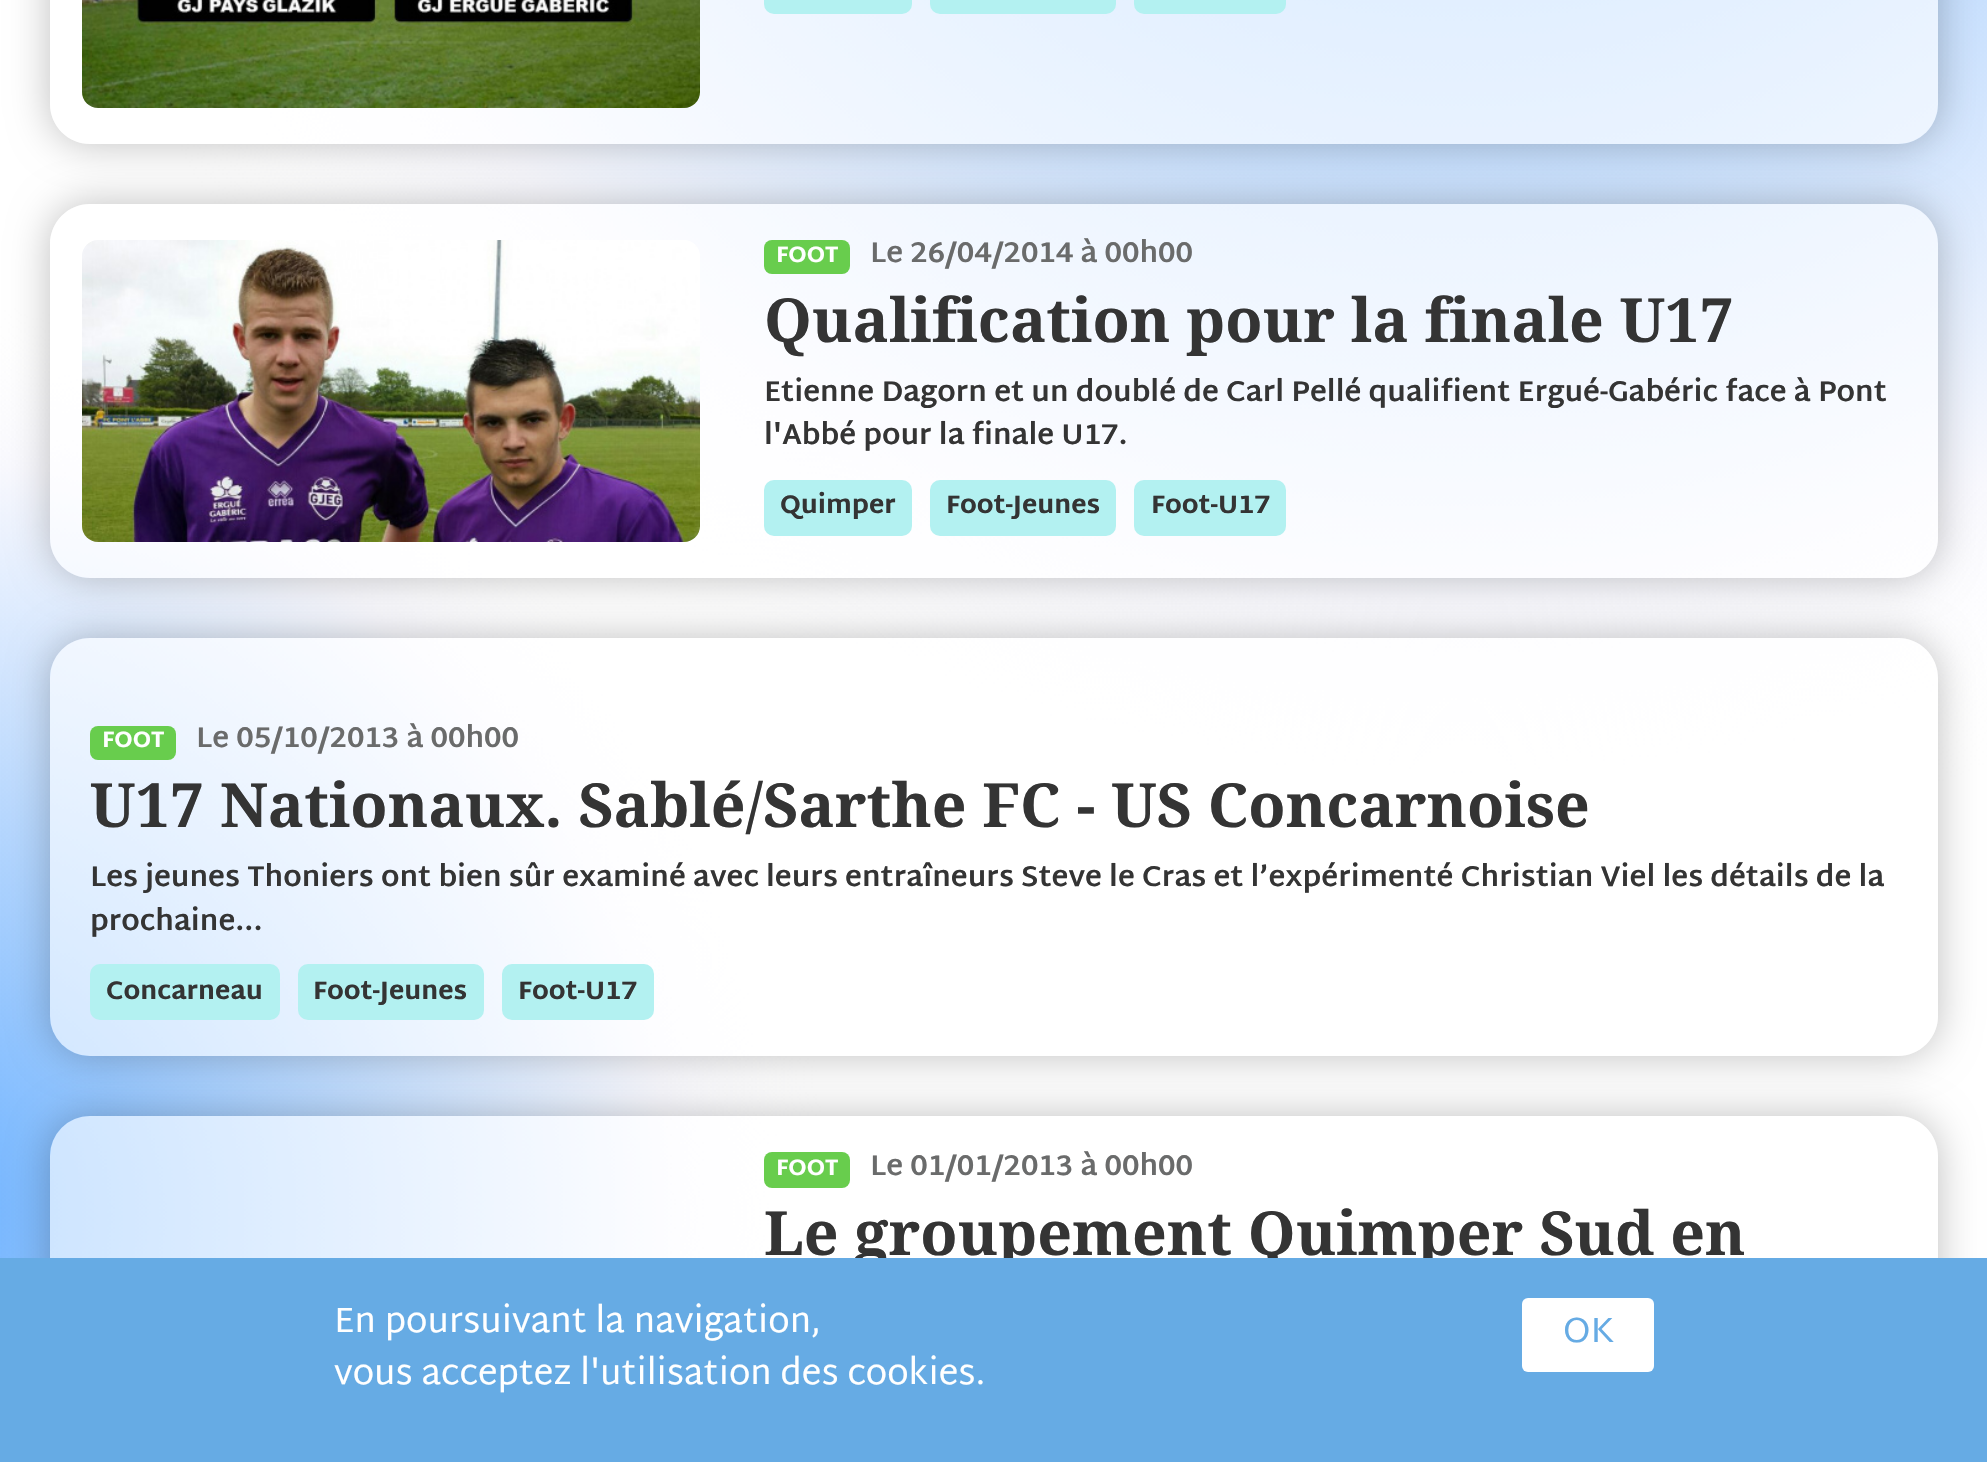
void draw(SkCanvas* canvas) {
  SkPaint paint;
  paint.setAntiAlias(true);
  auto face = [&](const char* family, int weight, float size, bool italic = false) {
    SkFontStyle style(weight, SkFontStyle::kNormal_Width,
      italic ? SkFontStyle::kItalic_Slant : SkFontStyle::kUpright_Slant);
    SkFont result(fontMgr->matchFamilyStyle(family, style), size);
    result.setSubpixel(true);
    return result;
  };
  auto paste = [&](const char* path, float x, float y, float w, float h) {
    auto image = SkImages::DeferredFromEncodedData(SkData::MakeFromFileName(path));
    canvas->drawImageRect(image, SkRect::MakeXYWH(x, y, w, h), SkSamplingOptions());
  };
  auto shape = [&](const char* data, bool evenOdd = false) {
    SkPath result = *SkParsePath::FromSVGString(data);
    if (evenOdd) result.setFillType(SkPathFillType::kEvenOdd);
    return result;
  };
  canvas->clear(0xffffffff);
  paste("img/1.png", 0, 0, 1987, 1258);
  canvas->save();
  canvas->clipPath(shape("M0 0H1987V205H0ZM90-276H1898C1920-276 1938-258 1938-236V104C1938 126 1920 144 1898 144H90C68 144 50 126 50 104V-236C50-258 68-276 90-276Z", true), true);
  paint.setColor(0x40000000);
  paint.setMaskFilter(SkMaskFilter::MakeBlur(kNormal_SkBlurStyle, 20));
  canvas->drawRoundRect(SkRect::MakeXYWH(50, -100, 1888, 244), 40, 40, paint);
  paint.setMaskFilter(nullptr);
  canvas->restore();
  paint.setColor(0x99ffffff);
  canvas->drawRoundRect(SkRect::MakeXYWH(50, -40, 1888, 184), 40, 40, paint);
  paste("img/2.png", 82, 0, 618, 108);
  paint.setColor(0xffb3f1f1);
  canvas->drawRoundRect(SkRect::MakeXYWH(764, -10, 148, 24), 10, 10, paint);
  canvas->drawRoundRect(SkRect::MakeXYWH(930, -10, 186, 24), 10, 10, paint);
  canvas->drawRoundRect(SkRect::MakeXYWH(1134, -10, 152, 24), 10, 10, paint);
  canvas->save();
  canvas->clipPath(shape("M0 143H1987V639H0ZM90 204H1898C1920 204 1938 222 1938 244V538C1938 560 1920 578 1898 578H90C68 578 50 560 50 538V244C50 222 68 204 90 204Z", true), true);
  paint.setColor(0x40000000);
  paint.setMaskFilter(SkMaskFilter::MakeBlur(kNormal_SkBlurStyle, 20));
  canvas->drawRoundRect(SkRect::MakeXYWH(50, 204, 1888, 374), 40, 40, paint);
  paint.setMaskFilter(nullptr);
  canvas->restore();
  paint.setColor(0x99ffffff);
  canvas->drawRoundRect(SkRect::MakeXYWH(50, 204, 1888, 374), 40, 40, paint);
  paste("img/3.png", 82, 240, 618, 302);
  paint.setColor(0xff68cd4d);
  canvas->drawRoundRect(SkRect::MakeXYWH(764, 240, 86, 34), 8, 8, paint);
  paint.setColor(0xffb3f1f1);
  canvas->drawRoundRect(SkRect::MakeXYWH(764, 480, 148, 56), 10, 10, paint);
  canvas->drawRoundRect(SkRect::MakeXYWH(930, 480, 186, 56), 10, 10, paint);
  canvas->drawRoundRect(SkRect::MakeXYWH(1134, 480, 152, 56), 10, 10, paint);
  canvas->save();
  canvas->clipPath(shape("M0 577H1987V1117H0ZM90 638H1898C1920 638 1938 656 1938 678V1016C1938 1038 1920 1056 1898 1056H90C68 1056 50 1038 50 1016V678C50 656 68 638 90 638Z", true), true);
  paint.setColor(0x40000000);
  paint.setMaskFilter(SkMaskFilter::MakeBlur(kNormal_SkBlurStyle, 20));
  canvas->drawRoundRect(SkRect::MakeXYWH(50, 638, 1888, 418), 40, 40, paint);
  paint.setMaskFilter(nullptr);
  canvas->restore();
  paint.setColor(0x99ffffff);
  canvas->drawRoundRect(SkRect::MakeXYWH(50, 638, 1888, 418), 40, 40, paint);
  paint.setColor(0xff68cd4d);
  canvas->drawRoundRect(SkRect::MakeXYWH(90, 726, 86, 34), 8, 8, paint);
  paint.setColor(0xffb3f1f1);
  canvas->drawRoundRect(SkRect::MakeXYWH(90, 964, 190, 56), 10, 10, paint);
  canvas->drawRoundRect(SkRect::MakeXYWH(298, 964, 186, 56), 10, 10, paint);
  canvas->drawRoundRect(SkRect::MakeXYWH(502, 964, 152, 56), 10, 10, paint);
  canvas->save();
  canvas->clipPath(shape("M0 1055H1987V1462H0ZM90 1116H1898C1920 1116 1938 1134 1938 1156V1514C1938 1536 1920 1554 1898 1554H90C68 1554 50 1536 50 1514V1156C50 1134 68 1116 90 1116Z", true), true);
  paint.setColor(0x40000000);
  paint.setMaskFilter(SkMaskFilter::MakeBlur(kNormal_SkBlurStyle, 20));
  canvas->drawRoundRect(SkRect::MakeXYWH(50, 1116, 1888, 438), 40, 40, paint);
  paint.setMaskFilter(nullptr);
  canvas->restore();
  paint.setColor(0x99ffffff);
  canvas->drawRoundRect(SkRect::MakeXYWH(50, 1116, 1888, 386), 40, 40, paint);
  paint.setColor(0xff68cd4d);
  canvas->drawRoundRect(SkRect::MakeXYWH(764, 1152, 86, 36), 8, 8, paint);
  auto f0 = face("Martel Sans", 800, 22.5f);
  paint.setColor(0xffffffff);
  canvas->drawString("FOOT", 776, 262, f0, paint);
  auto f1 = face("Martel Sans", 700, 28.8f);
  paint.setColor(0xff6a6b6b);
  canvas->drawString("Le 26/04/2014 à 00h00", 870, 262, f1, paint);
  auto f2 = face("Noto Serif", 700, 60.8f);
  paint.setColor(0xff343434);
  canvas->drawString("Qualification pour la finale U17", 764, 342, f2, paint);
  canvas->drawString("Etienne Dagorn et un doublé de Carl Pellé qualifient Ergué-Gabéric face à Pont", 764, 401, f1, paint);
  canvas->drawString("l'Abbé pour la finale U17.", 764, 444, f1, paint);
  auto f3 = face("Martel Sans", 800, 25.5f);
  {
    const struct { const char* s; float x, y; } items[] = {
      {"Quimper", 780, 513},
      {"Foot-Jeunes", 946, 513},
      {"Foot-U17", 1151, 513},
    };
    for (auto [s, x, y] : items) {
      canvas->drawString(s, x, y, f3, paint);
    }
  }
  paint.setColor(0xffffffff);
  canvas->drawString("FOOT", 102, 747, f0, paint);
  paint.setColor(0xff6a6b6b);
  canvas->drawString("Le 05/10/2013 à 00h00", 196, 747, f1, paint);
  paint.setColor(0xff343434);
  canvas->drawString("U17 Nationaux. Sablé/Sarthe FC - US Concarnoise", 90, 827, f2, paint);
  canvas->drawString("Les jeunes Thoniers ont bien sûr examiné avec leurs entraîneurs Steve le Cras et l’expérimenté Christian Viel les détails de la", 90, 886, f1, paint);
  canvas->drawString("prochaine...", 90, 930, f1, paint);
  {
    const struct { const char* s; float x, y; } items[] = {
      {"Concarneau", 106, 999},
      {"Foot-Jeunes", 313, 999},
      {"Foot-U17", 518, 999},
    };
    for (auto [s, x, y] : items) {
      canvas->drawString(s, x, y, f3, paint);
    }
  }
  paint.setColor(0xffffffff);
  canvas->drawString("FOOT", 776, 1175, f0, paint);
  paint.setColor(0xff6a6b6b);
  canvas->drawString("Le 01/01/2013 à 00h00", 870, 1175, f1, paint);
  paint.setColor(0xff343434);
  canvas->drawString("Le groupement Quimper Sud en", 764, 1255, f2, paint);
  paint.setColor(0xff66abe4);
  canvas->drawRect(SkRect::MakeXYWH(0, 1258, 1987, 204), paint);
  auto f4 = face("Martel Sans", 400, 35.25f);
  paint.setColor(0xffffffff);
  canvas->drawString("En poursuivant la navigation,", 334, 1332, f4, paint);
  canvas->drawString("vous acceptez l'utilisation des cookies.", 334, 1384, f4, paint);
  canvas->drawRoundRect(SkRect::MakeXYWH(1522, 1298, 132, 74), 6, 6, paint);
  paint.setColor(0xff66abe4);
  canvas->drawString("OK", 1563, 1342, f4, paint);
}
